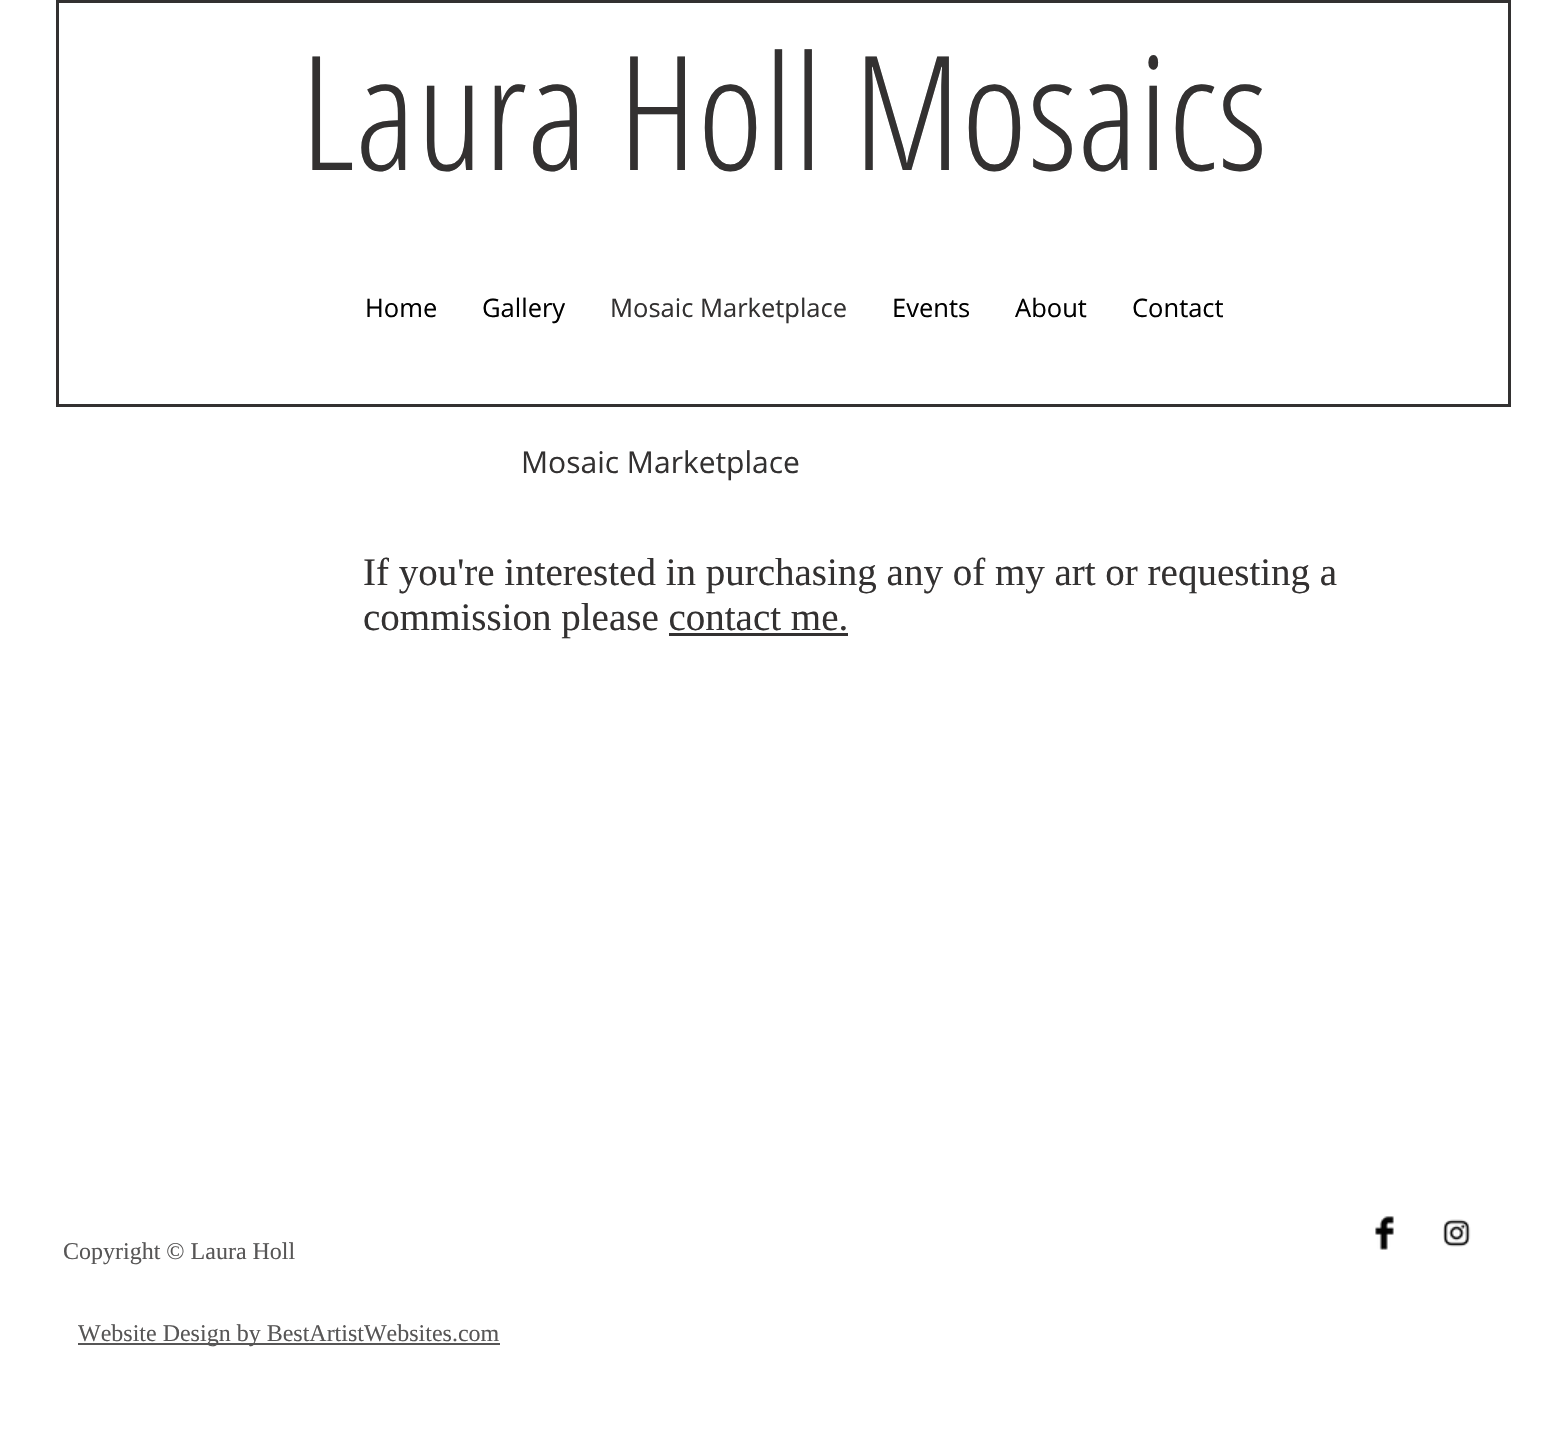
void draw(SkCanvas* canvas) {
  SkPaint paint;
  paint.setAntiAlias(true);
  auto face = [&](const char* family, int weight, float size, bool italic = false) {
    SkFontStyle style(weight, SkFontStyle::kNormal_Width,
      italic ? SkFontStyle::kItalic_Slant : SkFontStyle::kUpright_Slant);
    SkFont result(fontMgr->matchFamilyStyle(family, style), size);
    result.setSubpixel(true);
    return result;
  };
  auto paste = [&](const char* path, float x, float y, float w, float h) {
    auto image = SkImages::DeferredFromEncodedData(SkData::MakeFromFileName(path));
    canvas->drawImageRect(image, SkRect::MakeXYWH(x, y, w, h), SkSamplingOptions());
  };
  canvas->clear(0xffffffff);
  paint.setStroke(true);
  paint.setStrokeWidth(3);
  paint.setColor(0xff333131);
  canvas->drawRect(SkRect::MakeXYWH(57.5f, 1.5f, 1452, 404), paint);
  paint.setStroke(false);
  canvas->drawRect(SkRect::MakeXYWH(669, 633, 179, 3), paint);
  paste("img/1.png", 1375, 1216, 19, 34);
  paste("img/2.png", 1443, 1219, 28, 28);
  paint.setColor(0xff575656);
  canvas->drawRect(SkRect::MakeXYWH(78, 1343, 422, 2), paint);
  auto f0 = face("Open Sans Condensed", 300, 159);
  paint.setColor(0xff333131);
  canvas->drawString("Laura Holl Mosaics", 300, 170, f0, paint);
  auto f1 = face("Open Sans", 400, 25.5f);
  paint.setColor(0xff000000);
  canvas->drawString("Home", 365, 317, f1, paint);
  canvas->drawString("Gallery", 482, 317, f1, paint);
  paint.setColor(0xff333131);
  canvas->drawString("Mosaic Marketplace", 610, 317, f1, paint);
  paint.setColor(0xff000000);
  {
    const struct { const char* s; float x, y; } items[] = {
      {"Events", 892, 317},
      {"About", 1015, 317},
      {"Contact", 1132, 317},
    };
    for (auto [s, x, y] : items) {
      canvas->drawString(s, x, y, f1, paint);
    }
  }
  auto f2 = face("Open Sans", 400, 30);
  paint.setColor(0xff333131);
  canvas->drawString("Mosaic Marketplace", 521, 473, f2, paint);
  auto f3 = face("Liberation Serif", 400, 39);
  canvas->drawString("If you're interested in purchasing any of my art or requesting a", 363, 585, f3, paint);
  canvas->drawString("commission please contact me.", 363, 630, f3, paint);
  auto f4 = face("Liberation Serif", 400, 24);
  paint.setColor(0xff575656);
  canvas->drawString("Copyright © Laura Holl", 63, 1259, f4, paint);
  canvas->drawString("Website Design by BestArtistWebsites.com", 78, 1341, f4, paint);
}
